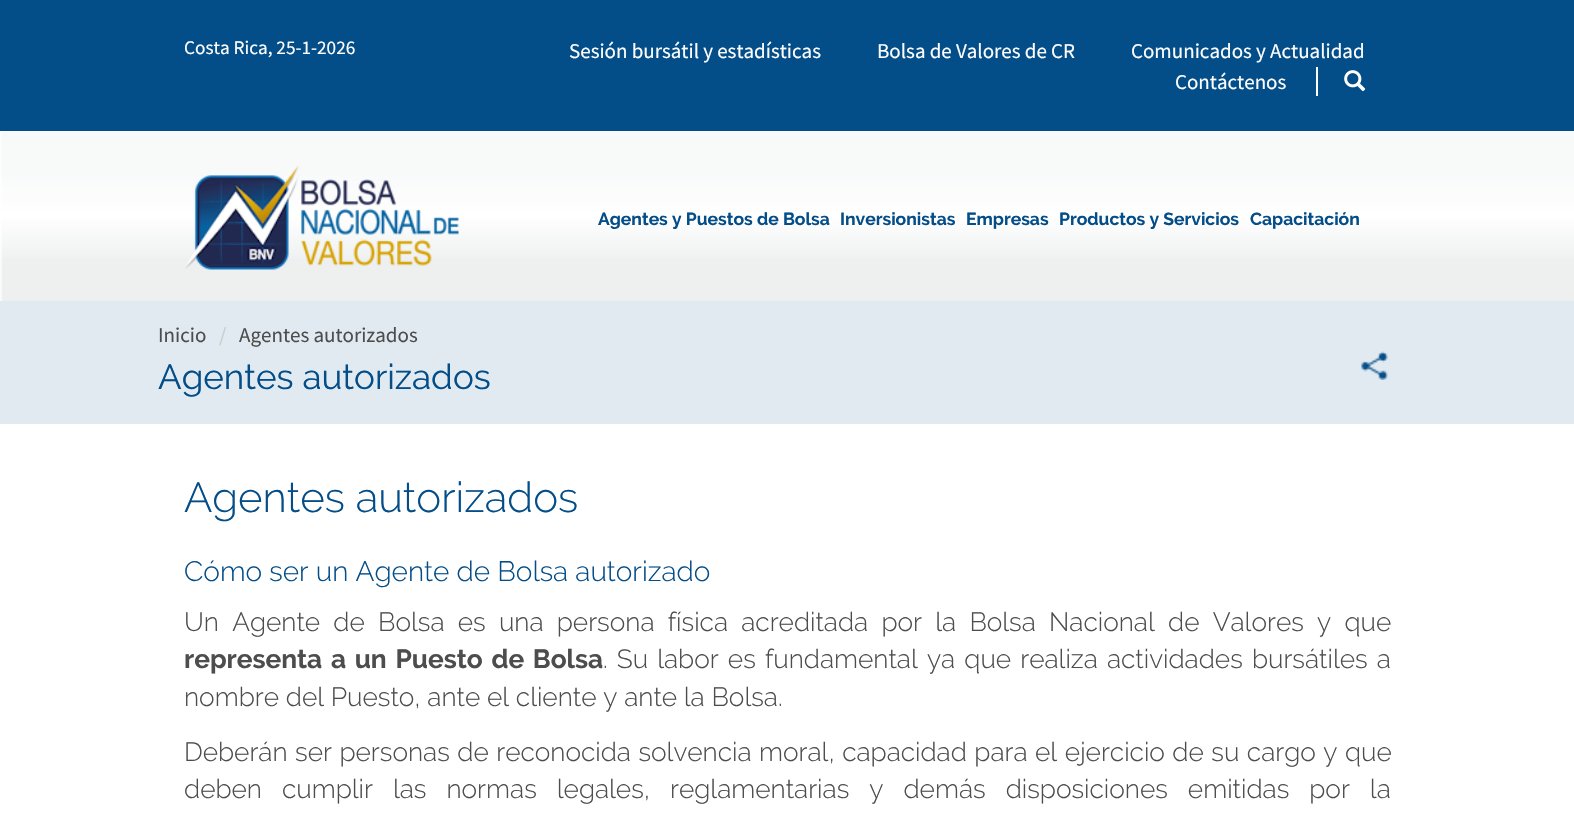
void draw(SkCanvas* canvas) {
  SkPaint paint;
  paint.setAntiAlias(true);
  auto face = [&](const char* family, int weight, float size, bool italic = false) {
    SkFontStyle style(weight, SkFontStyle::kNormal_Width,
      italic ? SkFontStyle::kItalic_Slant : SkFontStyle::kUpright_Slant);
    SkFont result(fontMgr->matchFamilyStyle(family, style), size);
    result.setSubpixel(true);
    return result;
  };
  auto writeSpaced = [&](const char* s, float x, float y, const SkFont& font, const SkPaint& ink, float letter, float word) {
    std::vector<SkGlyphID> glyphs(font.countText(s, strlen(s), SkTextEncoding::kUTF8));
    std::vector<float> xs(glyphs.size());
    font.textToGlyphs(s, strlen(s), SkTextEncoding::kUTF8, glyphs);
    font.getXPos(glyphs, xs, x);
    float extra = 0;
    for (size_t i = 0; i < glyphs.size(); i++) {
      xs[i] += extra;
      extra += letter + word * (glyphs[i] == font.unicharToGlyph(' '));
    }
    canvas->drawTextBlob(SkTextBlob::MakeFromPosHGlyphs(glyphs, xs, y, font), 0, 0, ink);
  };
  auto paste = [&](const char* path, float x, float y, float w, float h) {
    auto image = SkImages::DeferredFromEncodedData(SkData::MakeFromFileName(path));
    canvas->drawImageRect(image, SkRect::MakeXYWH(x, y, w, h), SkSamplingOptions());
  };
  canvas->clear(0xffffffff);
  paint.setColor(0xff034d88);
  canvas->drawRect(SkRect::MakeXYWH(0, 0, 1574, 131), paint);
  paint.setColor(0xffffffff);
  canvas->drawRect(SkRect::MakeXYWH(1316, 67, 2, 29), paint);
  paste("img/1.png", 1344, 70, 22, 22);
  paste("img/2.png", 0, 131, 1574, 170);
  paste("img/3.png", 185, 166, 274, 104);
  paint.setColor(0xffe1eaf0);
  canvas->drawRect(SkRect::MakeXYWH(0, 301, 1574, 123), paint);
  paste("img/4.png", 1361, 351, 27, 29);
  auto f0 = face("Source Sans Pro", 400, 19.25f);
  paint.setColor(0xffffffff);
  canvas->drawString("Costa Rica, 25-1-2026", 184, 54, f0, paint);
  auto f1 = face("Source Sans Pro", 400, 21);
  {
    const struct { const char* s; float x, y; } items[] = {
      {"Sesión bursátil y estadísticas", 569, 58},
      {"Bolsa de Valores de CR", 877, 58},
      {"Comunicados y Actualidad", 1131, 58},
      {"Contáctenos", 1175, 89},
    };
    for (auto [s, x, y] : items) {
      canvas->drawString(s, x, y, f1, paint);
    }
  }
  auto f2 = face("Raleway", 700, 17.5f);
  paint.setColor(0xff034d88);
  {
    const struct { const char* s; float x, y; } items[] = {
      {"Agentes y Puestos de Bolsa", 598, 225},
      {"Inversionistas", 840, 225},
      {"Empresas", 966, 225},
      {"Productos y Servicios", 1059, 225},
      {"Capacitación", 1250, 225},
    };
    for (auto [s, x, y] : items) {
      canvas->drawString(s, x, y, f2, paint);
    }
  }
  paint.setColor(0xff4d4d4d);
  canvas->drawString("Inicio", 158, 342, f1, paint);
  paint.setColor(0xffcccccc);
  canvas->drawString("/", 219, 342, f1, paint);
  paint.setColor(0xff4d4d4d);
  canvas->drawString("Agentes autorizados", 239, 342, f1, paint);
  auto f3 = face("Raleway", 400, 35);
  paint.setColor(0xff034d88);
  canvas->drawString("Agentes autorizados", 158, 389, f3, paint);
  auto f4 = face("Raleway", 300, 42);
  canvas->drawString("Agentes autorizados", 184, 512, f4, paint);
  auto f5 = face("Raleway", 300, 28);
  canvas->drawString("Cómo ser un Agente de Bolsa autorizado", 184, 581, f5, paint);
  auto f6 = face("Raleway", 300, 26.25f);
  paint.setColor(0xff4d4d4d);
  writeSpaced("Un Agente de Bolsa es una persona física acreditada por la Bolsa Nacional de Valores y que", 184, 631, f6, paint, 0, 6.5f);
  auto f7 = face("Raleway", 700, 26.25f);
  writeSpaced("representa a un Puesto de Bolsa", 184, 668, f7, paint, 0, 2.4f);
  writeSpaced(". Su labor es fundamental ya que realiza actividades bursátiles a", 603, 668, f6, paint, 0, 2.4f);
  canvas->drawString("nombre del Puesto, ante el cliente y ante la Bolsa.", 184, 706, f6, paint);
  writeSpaced("Deberán ser personas de reconocida solvencia moral, capacidad para el ejercicio de su cargo y que", 184, 761, f6, paint, 0, 0.75f);
  writeSpaced("deben cumplir las normas legales, reglamentarias y demás disposiciones emitidas por la", 184, 798, f6, paint, 0, 13.25f);
}
